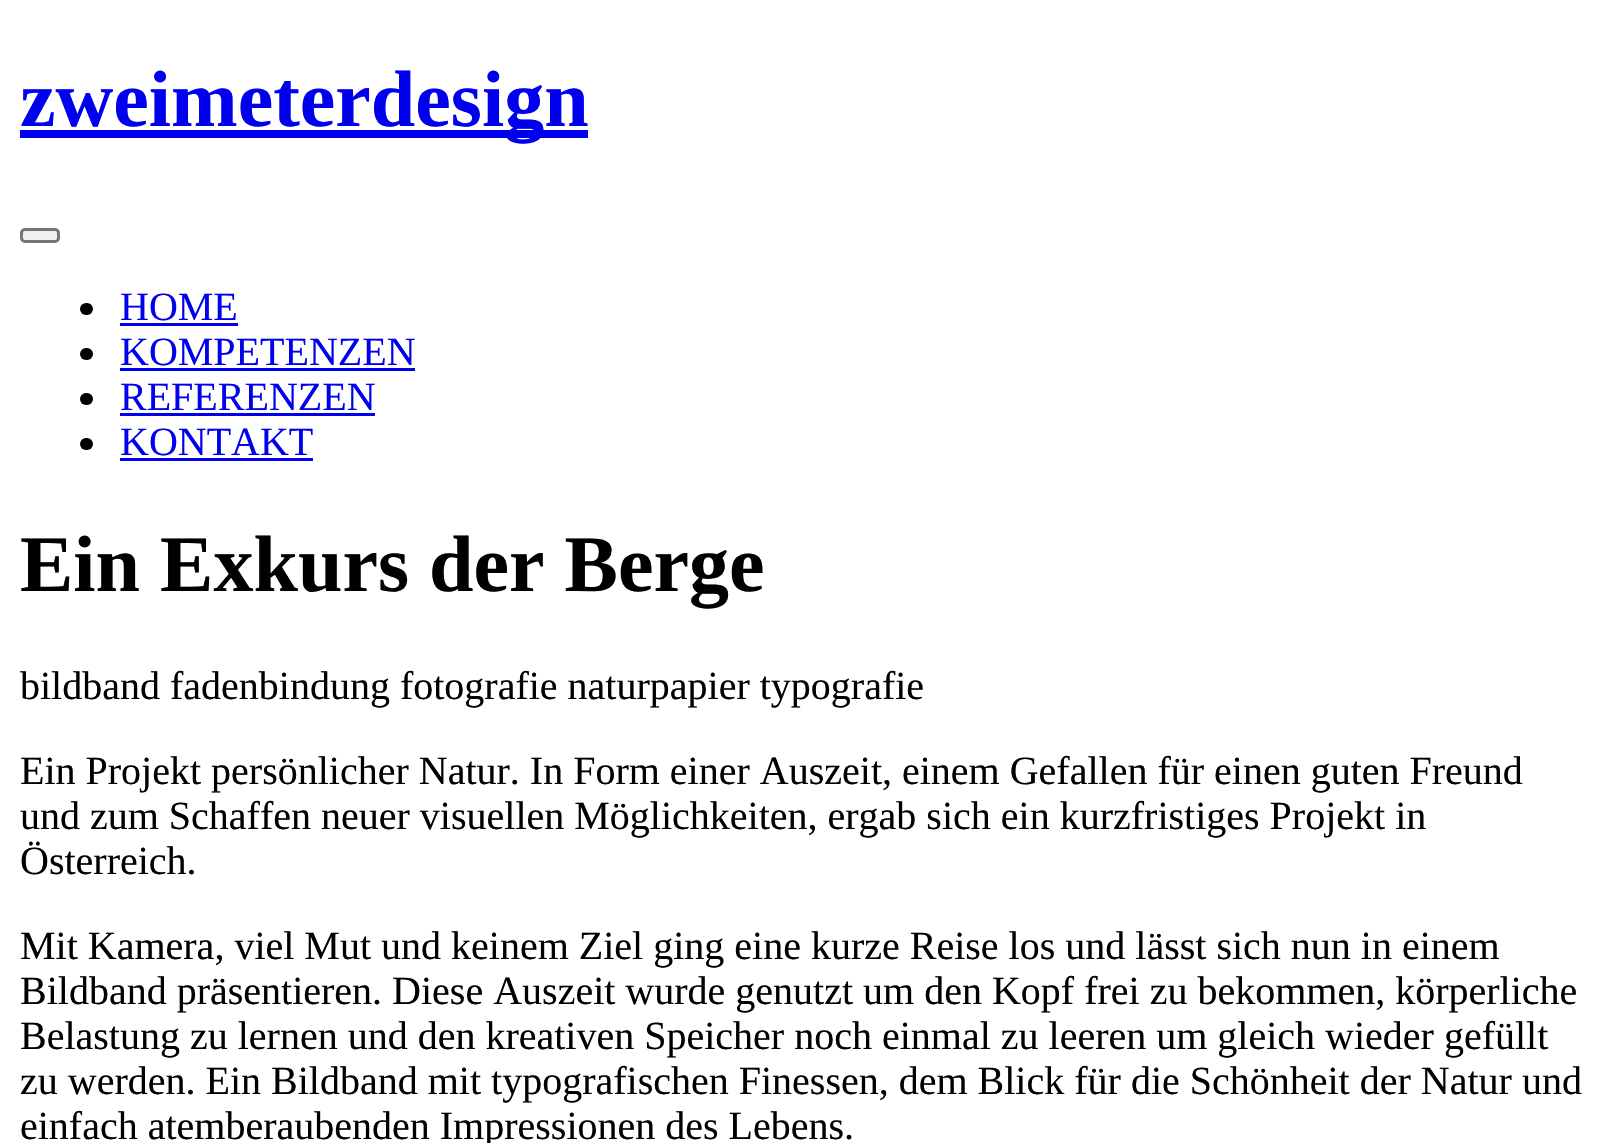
void draw(SkCanvas* canvas) {
  SkPaint paint;
  paint.setAntiAlias(true);
  auto face = [&](const char* family, int weight, float size, bool italic = false) {
    SkFontStyle style(weight, SkFontStyle::kNormal_Width,
      italic ? SkFontStyle::kItalic_Slant : SkFontStyle::kUpright_Slant);
    SkFont result(fontMgr->matchFamilyStyle(family, style), size);
    result.setSubpixel(true);
    return result;
  };
  canvas->clear(0xffffffff);
  paint.setColor(0xff0000ee);
  canvas->drawRect(SkRect::MakeXYWH(20, 130, 568, 8), paint);
  paint.setColor(0xffefefef);
  canvas->drawRoundRect(SkRect::MakeXYWH(21.5f, 229.5f, 37, 12), 3.5f, 3.5f, paint);
  paint.setStroke(true);
  paint.setStrokeWidth(3);
  paint.setColor(0xff767676);
  canvas->drawRoundRect(SkRect::MakeXYWH(21.5f, 229.5f, 37, 12), 3.5f, 3.5f, paint);
  paint.setStroke(false);
  paint.setColor(0xff000000);
  canvas->drawRoundRect(SkRect::MakeXYWH(80, 303, 13, 12), 6, 6, paint);
  paint.setColor(0xff0000ee);
  canvas->drawRect(SkRect::MakeXYWH(120, 323, 118, 3), paint);
  paint.setColor(0xff000000);
  canvas->drawRoundRect(SkRect::MakeXYWH(80, 348, 13, 12), 6, 6, paint);
  paint.setColor(0xff0000ee);
  canvas->drawRect(SkRect::MakeXYWH(120, 368, 295, 3), paint);
  paint.setColor(0xff000000);
  canvas->drawRoundRect(SkRect::MakeXYWH(80, 393, 13, 12), 6, 6, paint);
  paint.setColor(0xff0000ee);
  canvas->drawRect(SkRect::MakeXYWH(120, 413, 255, 3), paint);
  paint.setColor(0xff000000);
  canvas->drawRoundRect(SkRect::MakeXYWH(80, 438, 13, 12), 6, 6, paint);
  paint.setColor(0xff0000ee);
  canvas->drawRect(SkRect::MakeXYWH(120, 458, 193, 3), paint);
  auto f0 = face("Liberation Serif", 700, 80);
  canvas->drawString("zweimeterdesign", 20, 126, f0, paint);
  auto f1 = face("Liberation Serif", 400, 40);
  {
    const struct { const char* s; float x, y; } items[] = {
      {"HOME", 120, 320},
      {"KOMPETENZEN", 120, 365},
      {"REFERENZEN", 120, 410},
      {"KONTAKT", 120, 455},
    };
    for (auto [s, x, y] : items) {
      canvas->drawString(s, x, y, f1, paint);
    }
  }
  paint.setColor(0xff000000);
  canvas->drawString("Ein Exkurs der Berge", 20, 591, f0, paint);
  {
    const struct { const char* s; float x, y; } items[] = {
      {"bildband fadenbindung fotografie naturpapier typografie", 20, 699},
      {"Ein Projekt persönlicher Natur. In Form einer Auszeit, einem Gefallen für einen guten Freund", 20, 784},
      {"und zum Schaffen neuer visuellen Möglichkeiten, ergab sich ein kurzfristiges Projekt in", 20, 829},
      {"Österreich.", 20, 874},
      {"Mit Kamera, viel Mut und keinem Ziel ging eine kurze Reise los und lässt sich nun in einem", 20, 959},
      {"Bildband präsentieren. Diese Auszeit wurde genutzt um den Kopf frei zu bekommen, körperliche", 20, 1004},
      {"Belastung zu lernen und den kreativen Speicher noch einmal zu leeren um gleich wieder gefüllt", 20, 1049},
      {"zu werden. Ein Bildband mit typografischen Finessen, dem Blick für die Schönheit der Natur und", 20, 1094},
      {"einfach atemberaubenden Impressionen des Lebens.", 20, 1139},
    };
    for (auto [s, x, y] : items) {
      canvas->drawString(s, x, y, f1, paint);
    }
  }
}
